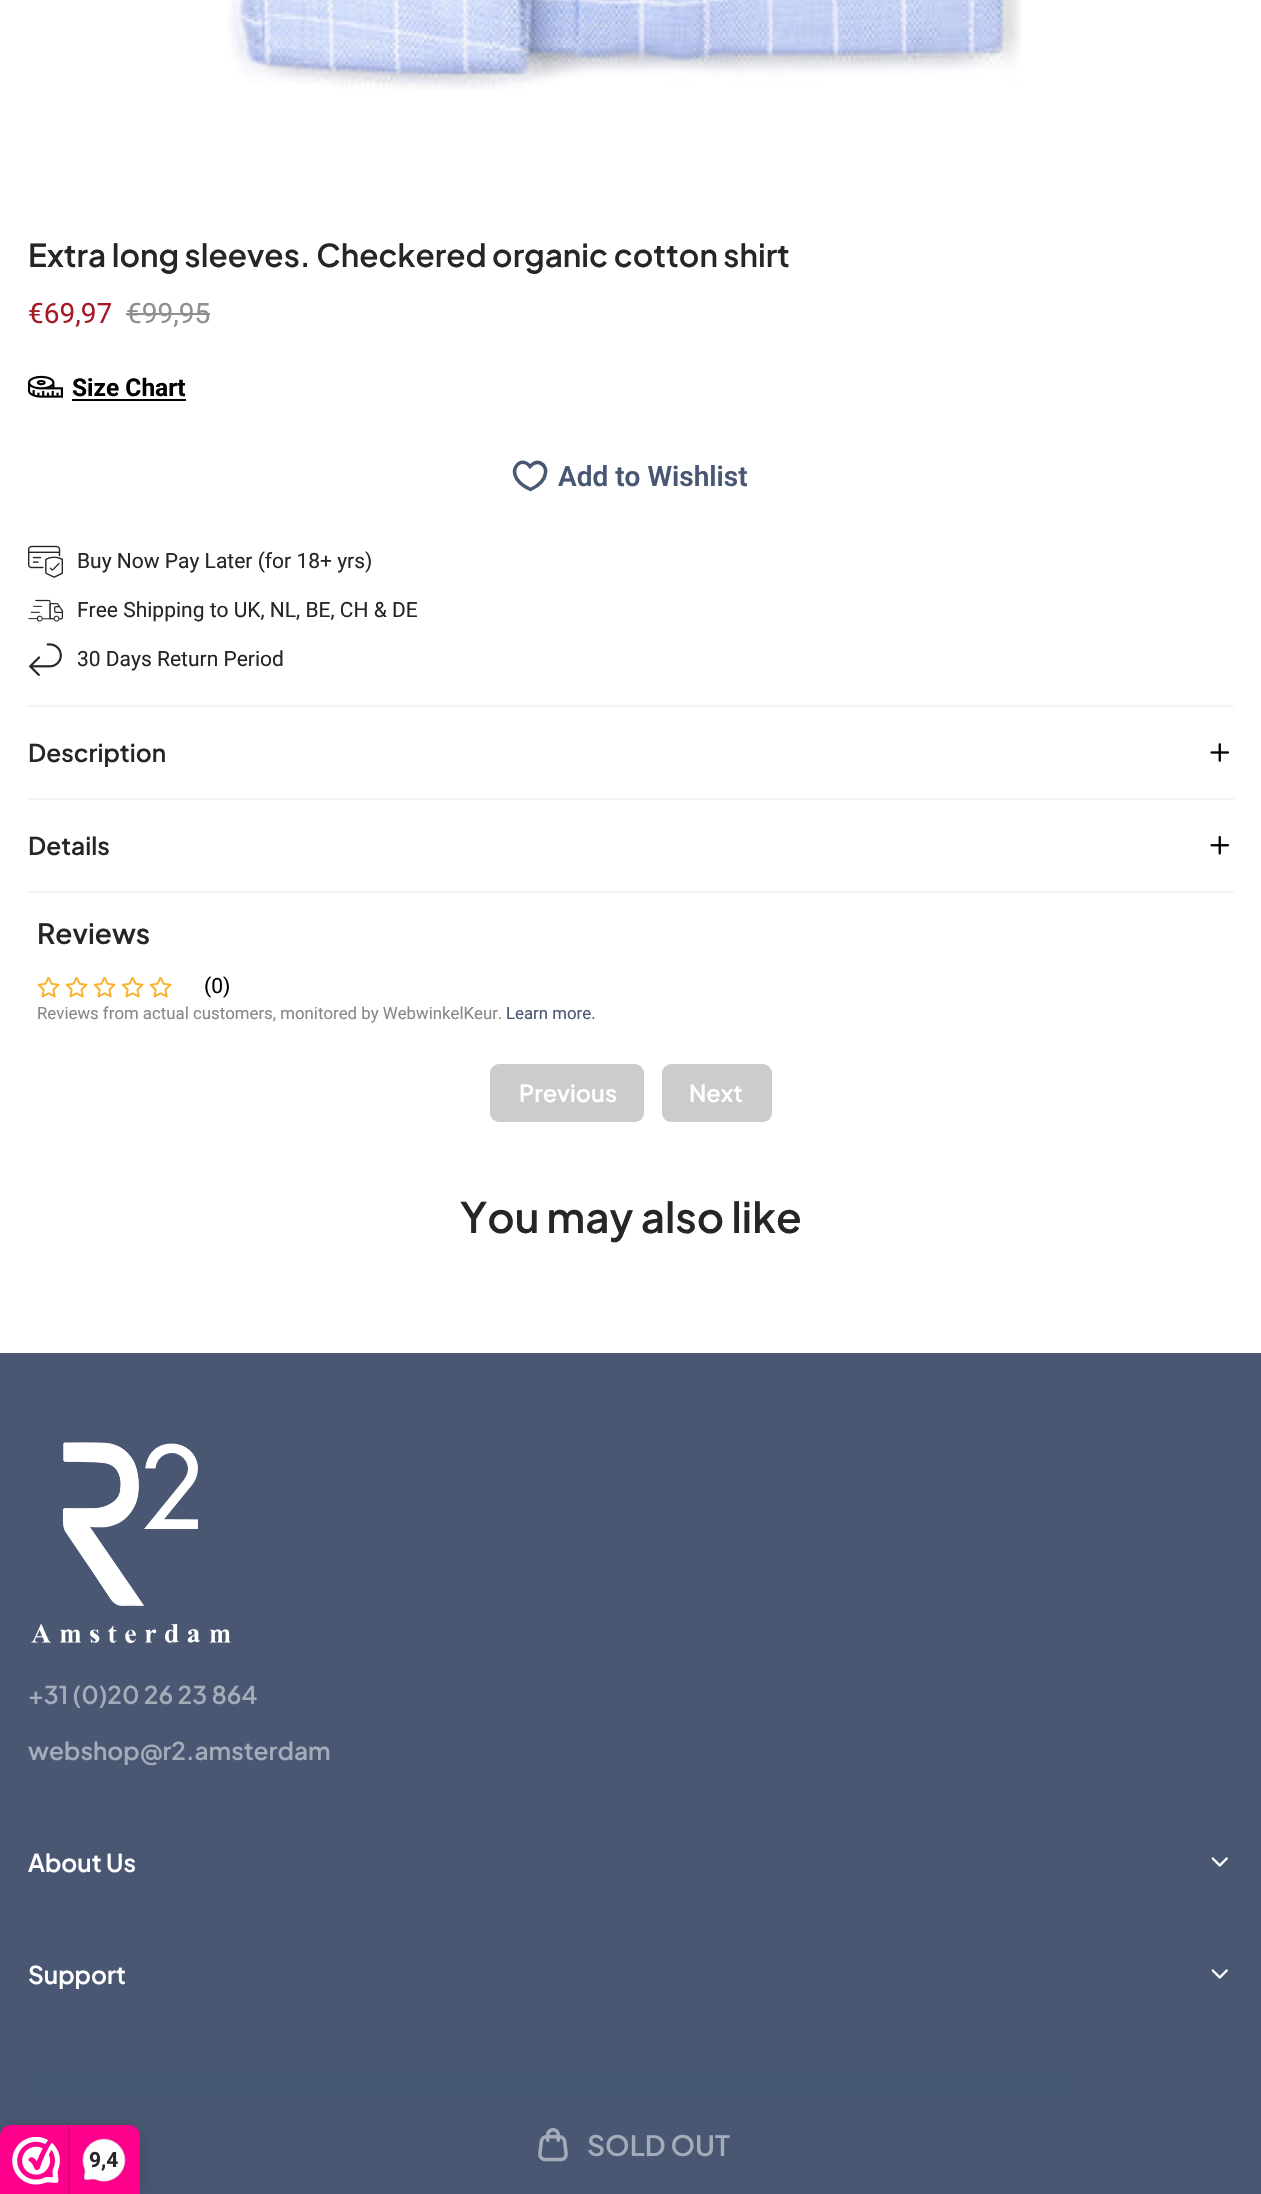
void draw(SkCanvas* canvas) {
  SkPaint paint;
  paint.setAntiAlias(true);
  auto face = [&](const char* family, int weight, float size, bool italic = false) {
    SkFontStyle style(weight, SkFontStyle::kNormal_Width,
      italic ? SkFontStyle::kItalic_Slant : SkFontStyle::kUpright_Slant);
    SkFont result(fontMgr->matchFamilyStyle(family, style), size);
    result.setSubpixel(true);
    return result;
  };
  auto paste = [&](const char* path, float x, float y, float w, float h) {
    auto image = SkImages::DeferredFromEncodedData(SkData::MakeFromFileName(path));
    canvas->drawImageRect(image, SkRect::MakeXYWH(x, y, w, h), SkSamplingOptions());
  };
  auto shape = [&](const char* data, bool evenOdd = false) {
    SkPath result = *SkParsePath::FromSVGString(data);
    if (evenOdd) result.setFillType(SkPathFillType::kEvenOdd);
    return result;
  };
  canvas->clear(0xffffffff);
  paste("img/1.png", 228, 0, 794, 90);
  paint.setColor(0xff8f8f8f);
  canvas->drawRect(SkRect::MakeXYWH(126, 313, 84, 2), paint);
  paste("img/2.png", 28, 375, 35, 23);
  paint.setColor(0xff000000);
  canvas->drawRect(SkRect::MakeXYWH(72, 399, 114, 2), paint);
  paste("img/3.png", 28, 545, 35, 33);
  paste("img/4.png", 28, 599, 35, 23);
  paste("img/5.png", 29, 643, 33, 33);
  paint.setStroke(true);
  paint.setStrokeWidth(3.5f);
  paint.setColor(0xff495773);
  canvas->drawPath(shape("M530.5 489.5C524 486.5 517 482 515 475C513 468 518.5 460 526 463C528 464 529 465 530 466.5C531.5 465 532.5 464 534.5 463C541 460.5 546.5 466.5 545.5 473C544.5 481 537 486.5 530.5 489.5Z"), paint);
  paint.setStroke(false);
  canvas->drawRect(SkRect::MakeXYWH(0, 1353, 1261, 841), paint);
  paste("img/6.png", 538, 2128, 30, 34);
  paint.setColor(0xfff4f4f4);
  canvas->drawRect(SkRect::MakeXYWH(28, 705, 1206, 2), paint);
  canvas->drawRect(SkRect::MakeXYWH(28, 798, 1206, 2), paint);
  paste("img/7.png", 1210, 743, 20, 19);
  canvas->drawRect(SkRect::MakeXYWH(28, 891, 1206, 2), paint);
  paste("img/8.png", 1210, 835, 20, 20);
  paste("img/9.png", 37, 977, 23, 21);
  paste("img/9.png", 65, 977, 23, 21);
  paste("img/9.png", 93, 977, 23, 21);
  paste("img/9.png", 121, 977, 23, 21);
  paste("img/9.png", 149, 977, 23, 21);
  paint.setColor(0xffcccccc);
  canvas->drawRoundRect(SkRect::MakeXYWH(490, 1064, 154, 58), 9, 9, paint);
  canvas->drawRoundRect(SkRect::MakeXYWH(662, 1064, 110, 58), 9, 9, paint);
  paste("img/10.png", 31, 1442, 200, 202);
  paste("img/11.png", 1211, 1857, 17, 10);
  paste("img/11.png", 1211, 1969, 17, 10);
  paint.setColor(0xff465773);
  canvas->drawRect(SkRect::MakeXYWH(28, 2069, 1050, 28), paint);
  paint.setColor(0x26000000);
  paint.setMaskFilter(SkMaskFilter::MakeBlur(kNormal_SkBlurStyle, 9));
  canvas->drawRoundRect(SkRect::MakeXYWH(0, 2128, 140, 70), 11, 11, paint);
  paint.setMaskFilter(nullptr);
  paint.setColor(0xfffe008c);
  canvas->drawPath(shape("M11 2125H129C135 2125 140 2130 140 2136V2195H0V2136C0 2130 5 2125 11 2125Z"), paint);
  paste("img/12.png", 12, 2137, 48, 48);
  paint.setColor(0xffd80077);
  canvas->drawRect(SkRect::MakeXYWH(68, 2126, 2, 68), paint);
  paste("img/13.png", 82, 2138, 44, 45);
  auto f0 = face("Plus Jakarta Sans", 600, 31.5f);
  paint.setColor(0xff262626);
  canvas->drawString("Extra long sleeves. Checkered organic cotton shirt", 28, 267, f0, paint);
  auto f1 = face("Roboto", 400, 28);
  paint.setColor(0xffa21b26);
  canvas->drawString("€69,97", 28, 323, f1, paint);
  paint.setColor(0xff8f8f8f);
  canvas->drawString("€99,95", 126, 323, f1, paint);
  auto f2 = face("Roboto", 700, 24.5f);
  paint.setColor(0xff000000);
  canvas->drawString("Size Chart", 72, 396, f2, paint);
  auto f3 = face("Roboto", 400, 21);
  paint.setColor(0xff262626);
  {
    const struct { const char* s; float x, y; } items[] = {
      {"Buy Now Pay Later (for 18+ yrs)", 77, 568},
      {"Free Shipping to UK, NL, BE, CH & DE", 77, 617},
      {"30 Days Return Period", 77, 666},
    };
    for (auto [s, x, y] : items) {
      canvas->drawString(s, x, y, f3, paint);
    }
  }
  auto f4 = face("Roboto", 600, 28);
  paint.setColor(0xff495773);
  canvas->drawString("Add to Wishlist", 558, 486, f4, paint);
  auto f5 = face("Plus Jakarta Sans", 600, 28);
  paint.setColor(0xffa4abb9);
  canvas->drawString("SOLD OUT", 587, 2156, f5, paint);
  auto f6 = face("Plus Jakarta Sans", 600, 24.5f);
  paint.setColor(0xff262626);
  canvas->drawString("Description", 28, 762, f6, paint);
  canvas->drawString("Details", 28, 855, f6, paint);
  canvas->drawString("Reviews", 37, 944, f5, paint);
  paint.setColor(0xff000000);
  canvas->drawString("(0)", 204, 993, f3, paint);
  auto f7 = face("Roboto", 400, 16.8f);
  paint.setColor(0xff888888);
  canvas->drawString("Reviews from actual customers, monitored by WebwinkelKeur.", 37, 1019, f7, paint);
  paint.setColor(0xff495773);
  canvas->drawString("Learn more.", 506, 1019, f7, paint);
  auto f8 = face("Plus Jakarta Sans", 600, 23.5f);
  paint.setColor(0xffffffff);
  canvas->drawString("Previous", 519, 1102, f8, paint);
  canvas->drawString("Next", 689, 1102, f8, paint);
  auto f9 = face("Plus Jakarta Sans", 600, 42);
  paint.setColor(0xff262626);
  canvas->drawString("You may also like", 460, 1233, f9, paint);
  paint.setColor(0xffa4abb9);
  canvas->drawString("+31 (0)20 26 23 864", 28, 1704, f6, paint);
  canvas->drawString("webshop@r2.amsterdam", 28, 1760, f6, paint);
  paint.setColor(0xffffffff);
  canvas->drawString("About Us", 28, 1872, f6, paint);
  canvas->drawString("Support", 28, 1984, f6, paint);
  auto f10 = face("Roboto", 700, 21);
  paint.setColor(0xff262626);
  canvas->drawString("9,4", 89, 2167, f10, paint);
}
